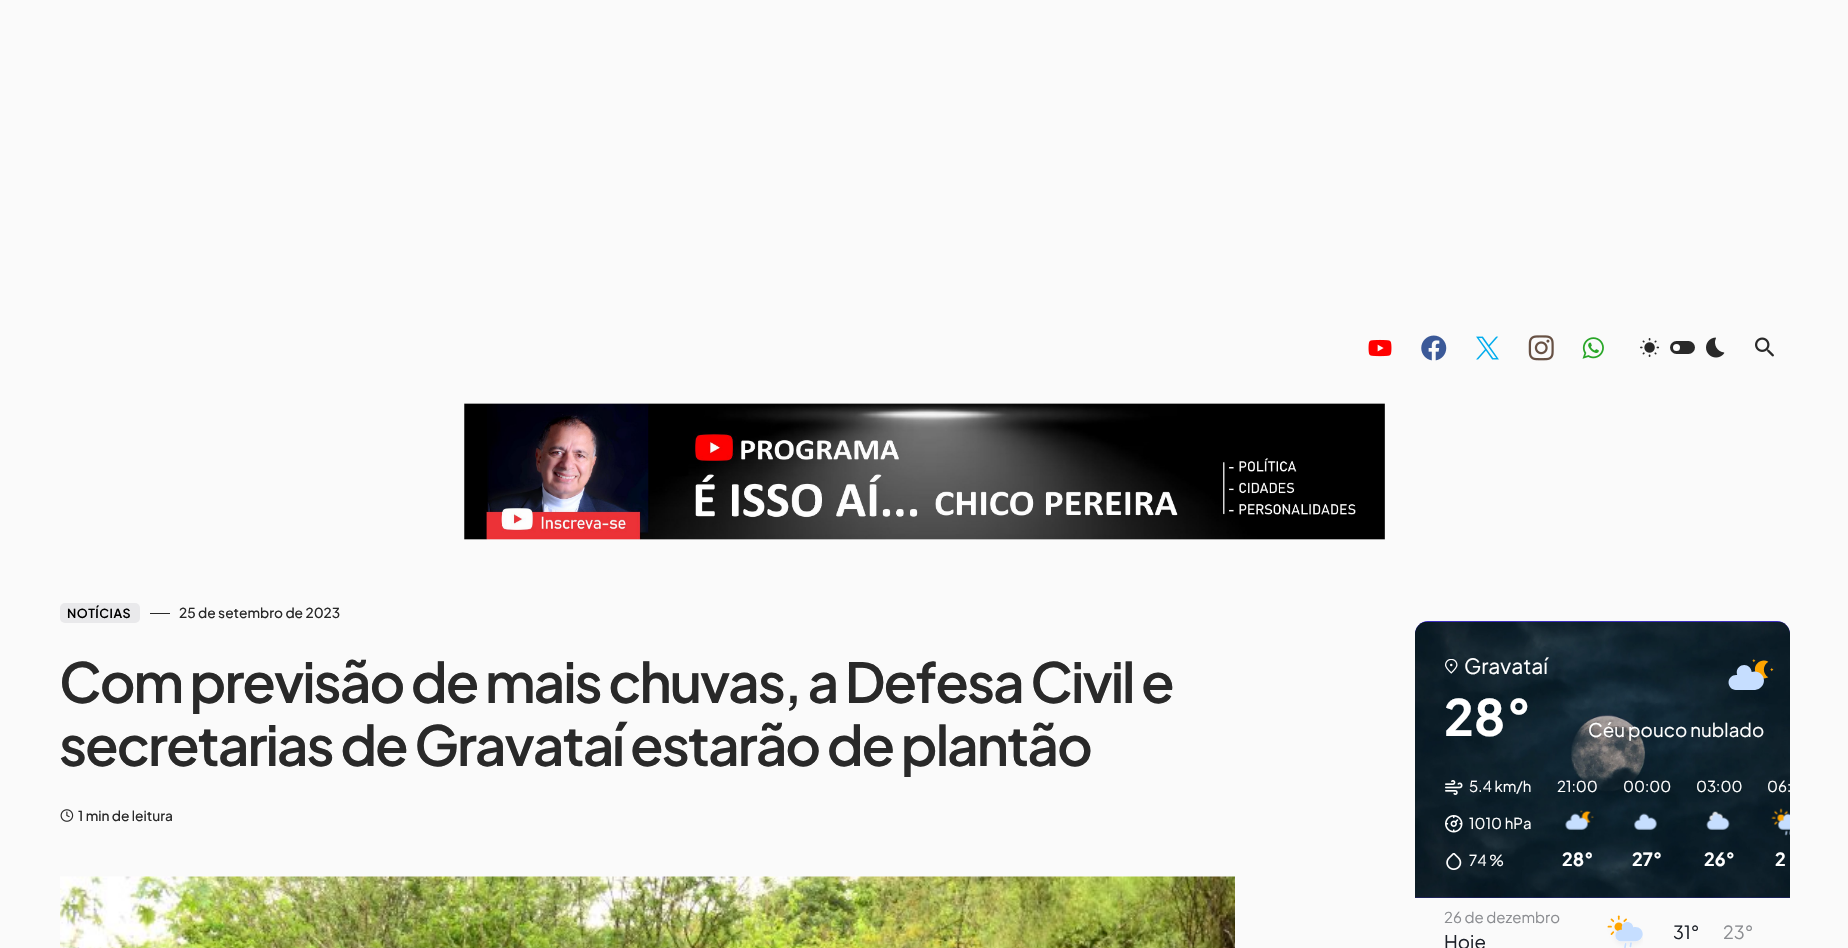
void draw(SkCanvas* canvas) {
  SkPaint paint;
  paint.setAntiAlias(true);
  auto face = [&](const char* family, int weight, float size, bool italic = false) {
    SkFontStyle style(weight, SkFontStyle::kNormal_Width,
      italic ? SkFontStyle::kItalic_Slant : SkFontStyle::kUpright_Slant);
    SkFont result(fontMgr->matchFamilyStyle(family, style), size);
    result.setSubpixel(true);
    return result;
  };
  auto writeSpaced = [&](const char* s, float x, float y, const SkFont& font, const SkPaint& ink, float letter, float word) {
    std::vector<SkGlyphID> glyphs(font.countText(s, strlen(s), SkTextEncoding::kUTF8));
    std::vector<float> xs(glyphs.size());
    font.textToGlyphs(s, strlen(s), SkTextEncoding::kUTF8, glyphs);
    font.getXPos(glyphs, xs, x);
    float extra = 0;
    for (size_t i = 0; i < glyphs.size(); i++) {
      xs[i] += extra;
      extra += letter + word * (glyphs[i] == font.unicharToGlyph(' '));
    }
    canvas->drawTextBlob(SkTextBlob::MakeFromPosHGlyphs(glyphs, xs, y, font), 0, 0, ink);
  };
  auto paste = [&](const char* path, float x, float y, float w, float h) {
    auto image = SkImages::DeferredFromEncodedData(SkData::MakeFromFileName(path));
    canvas->drawImageRect(image, SkRect::MakeXYWH(x, y, w, h), SkSamplingOptions());
  };
  auto shape = [&](const char* data, bool evenOdd = false) {
    SkPath result = *SkParsePath::FromSVGString(data);
    if (evenOdd) result.setFillType(SkPathFillType::kEvenOdd);
    return result;
  };
  canvas->clear(0xfffafafa);
  paste("img/1.png", 1368, 339, 24, 18);
  paste("img/2.png", 1421, 335, 26, 26);
  paste("img/3.png", 1476, 336, 23, 24);
  paste("img/4.png", 1528, 335, 26, 26);
  paste("img/5.png", 1582, 337, 22, 22);
  paste("img/6.png", 1640, 338, 20, 19);
  paint.setColor(0xff292929);
  canvas->drawRoundRect(SkRect::MakeXYWH(1670, 341, 25, 13), 6.5f, 6.5f, paint);
  paint.setColor(0xffffffff);
  canvas->drawCircle(1676.5f, 347.5f, 3.5f, paint);
  paste("img/7.png", 1706, 337, 19, 21);
  paste("img/8.png", 1755, 337, 19, 20);
  paste("img/9.png", 464, 403, 921, 137);
  paint.setColor(0xffe9e9eb);
  canvas->drawRoundRect(SkRect::MakeXYWH(60, 603, 80, 20), 5, 5, paint);
  paint.setColor(0xff292929);
  canvas->drawRect(SkRect::MakeXYWH(150, 613, 20, 1), paint);
  paste("img/10.png", 60, 809, 14, 13);
  paste("img/11.png", 60, 876, 1175, 72);
  paint.setColor(0xff4d34f3);
  canvas->drawPath(shape("M1428 621H1777C1784 621 1790 627 1790 634V898H1415V634C1415 627 1421 621 1428 621Z"), paint);
  paste("img/12.png", 1415, 621, 375, 277);
  paste("img/13.png", 1445, 659, 13, 15);
  paste("img/14.png", 1728, 659, 46, 31);
  paste("img/15.png", 1445, 780, 18, 15);
  paste("img/16.png", 1445, 815, 18, 18);
  paste("img/17.png", 1446, 853, 16, 17);
  paste("img/18.png", 1565, 810, 29, 20);
  paste("img/19.png", 1634, 813, 23, 17);
  paste("img/20.png", 1706, 811, 24, 19);
  paste("img/21.png", 1771, 808, 19, 28);
  paste("img/22.png", 1607, 915, 36, 33);
  auto f0 = face("Plus Jakarta Sans", 600, 12.5f);
  paint.setColor(0xff000000);
  writeSpaced("NOTÍCIAS", 67, 618, f0, paint, 0.5f, 0);
  auto f1 = face("Plus Jakarta Sans", 500, 13.75f);
  paint.setColor(0xff292929);
  canvas->drawString("25 de setembro de 2023", 179, 618, f1, paint);
  auto f2 = face("Plus Jakarta Sans", 600, 55);
  writeSpaced("Com previsão de mais chuvas, a Defesa Civil e", 59, 703, f2, paint, -2.05f, 0);
  writeSpaced("secretarias de Gravataí estarão de plantão", 59, 766, f2, paint, -2.05f, 0);
  canvas->drawString("1 min de leitura", 78, 821, f1, paint);
  auto f3 = face("Plus Jakarta Sans", 400, 21);
  paint.setColor(0xffffffff);
  canvas->drawString("Gravataí", 1464, 674, f3, paint);
  auto f4 = face("Plus Jakarta Sans", 700, 50);
  canvas->drawString("28°", 1444, 736, f4, paint);
  auto f5 = face("Plus Jakarta Sans", 400, 18.75f);
  canvas->drawString("Céu pouco nublado", 1588, 737, f5, paint);
  auto f6 = face("Plus Jakarta Sans", 400, 15);
  {
    const struct { const char* s; float x, y; } items[] = {
      {"5.4 km/h", 1469, 792},
      {"1010 hPa", 1469, 829},
      {"74 %", 1469, 866},
      {"21:00", 1557, 792},
    };
    for (auto [s, x, y] : items) {
      canvas->drawString(s, x, y, f6, paint);
    }
  }
  auto f7 = face("Plus Jakarta Sans", 700, 18);
  canvas->drawString("28°", 1562, 866, f7, paint);
  canvas->drawString("00:00", 1623, 792, f6, paint);
  canvas->drawString("27°", 1632, 866, f7, paint);
  canvas->drawString("03:00", 1696, 792, f6, paint);
  canvas->drawString("26°", 1704, 866, f7, paint);
  canvas->drawString("06:", 1767, 792, f6, paint);
  canvas->drawString("2", 1775, 866, f7, paint);
  paint.setColor(0xff8c8e92);
  canvas->drawString("26 de dezembro", 1444, 923, f6, paint);
  paint.setColor(0xff1d2129);
  canvas->drawString("Hoje", 1444, 949, f5, paint);
  auto f8 = face("Plus Jakarta Sans", 400, 18);
  canvas->drawString("31°", 1673, 939, f8, paint);
  paint.setColor(0xff8c8e92);
  canvas->drawString("23°", 1723, 939, f8, paint);
}
